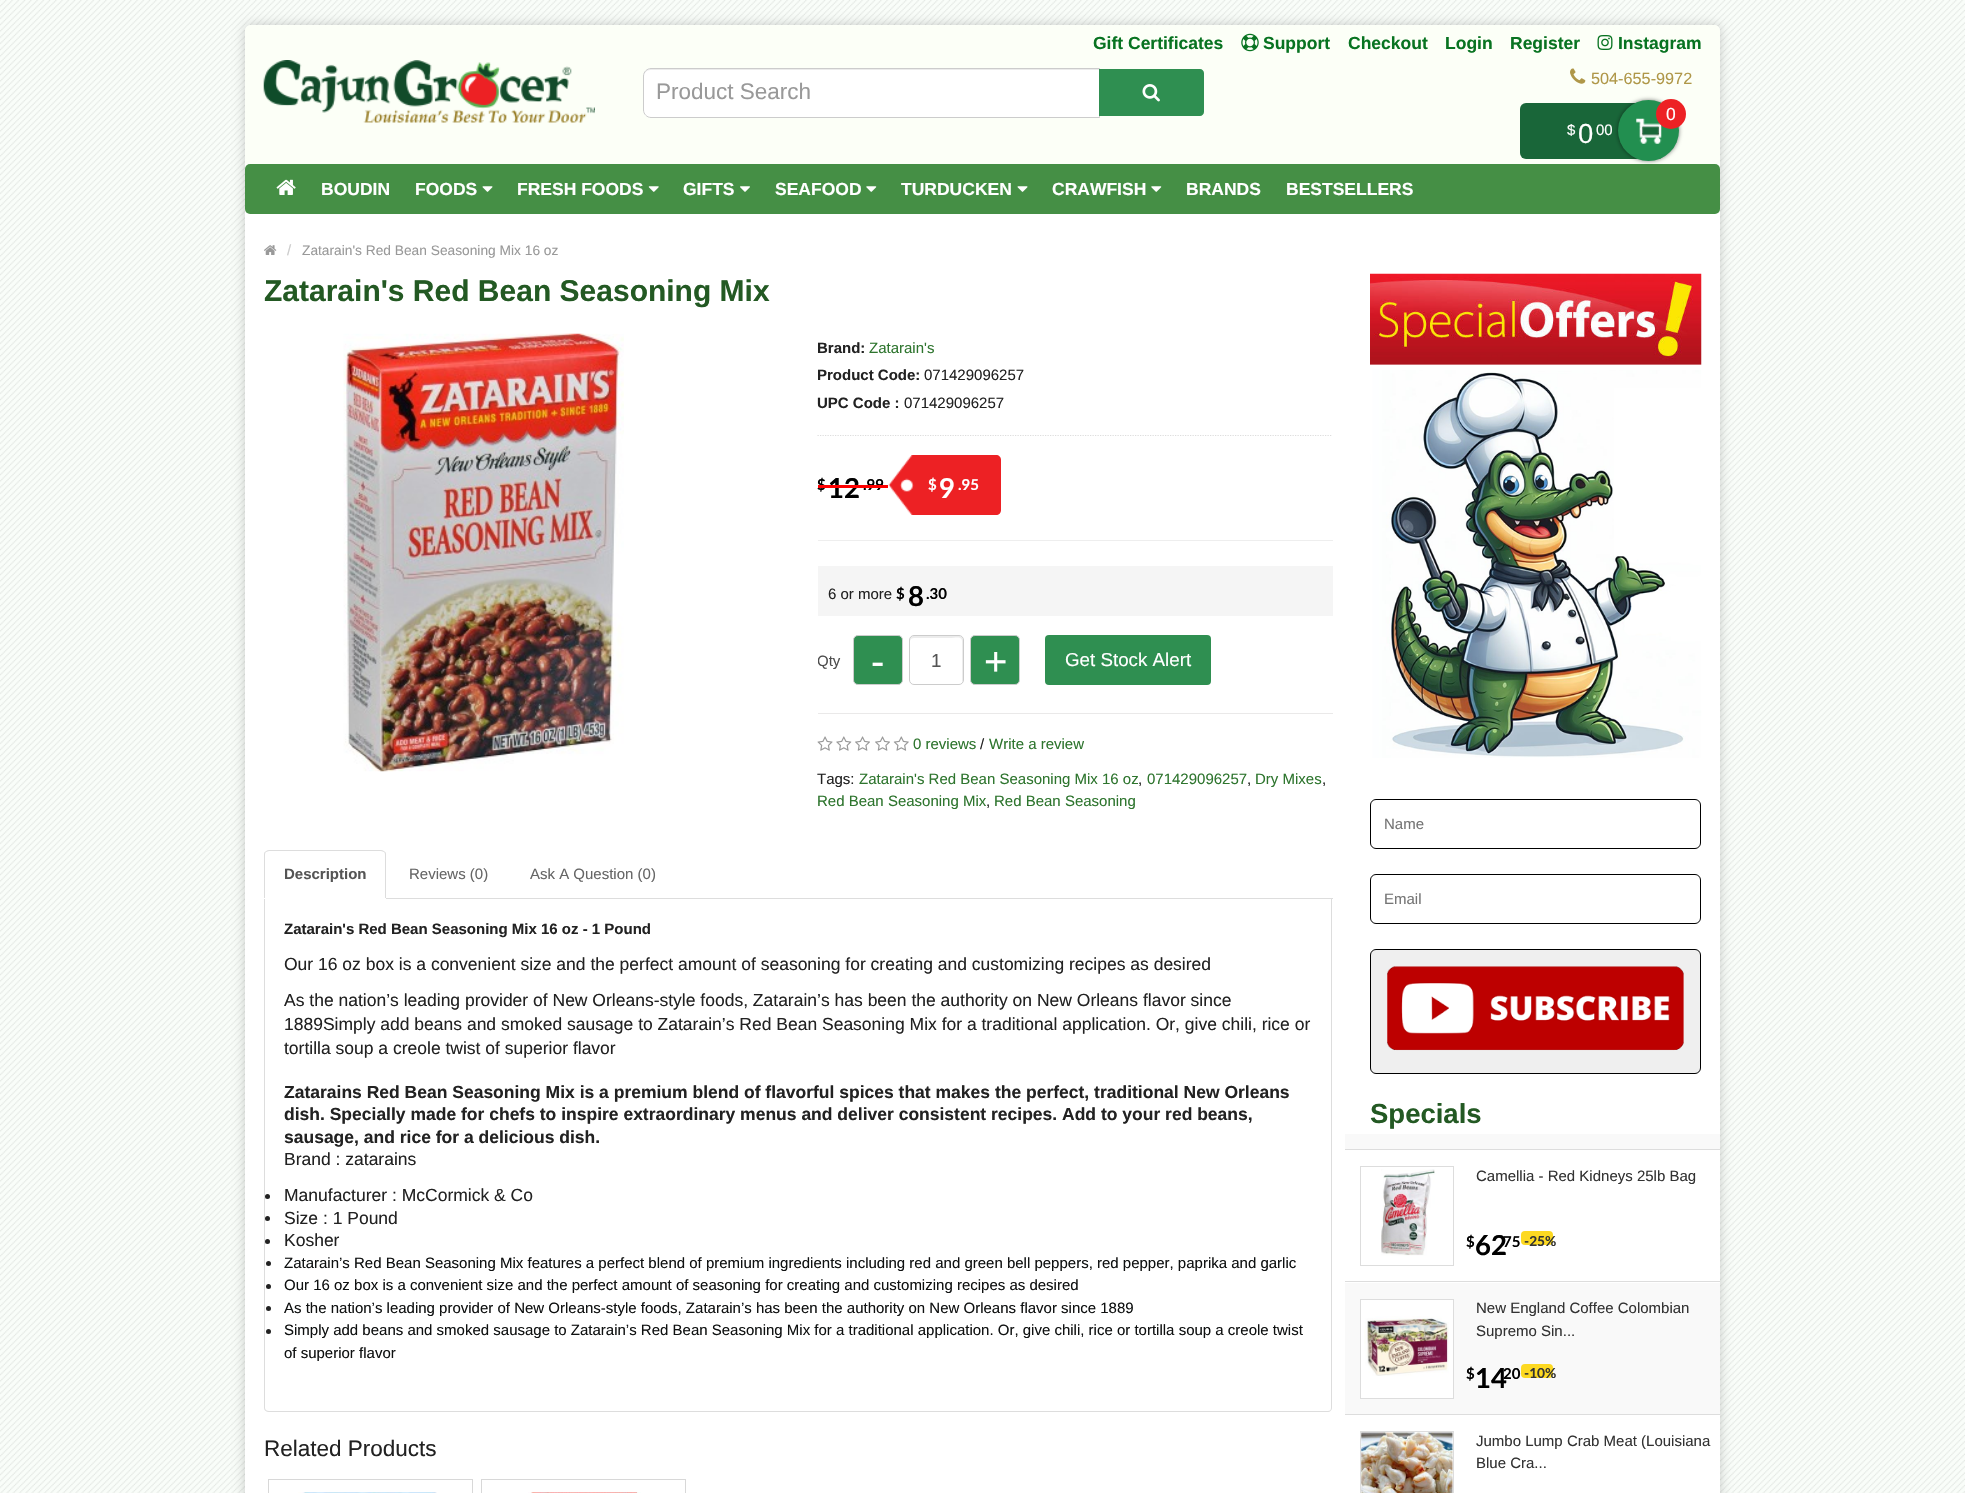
void draw(SkCanvas* canvas) {
  SkPaint paint;
  paint.setAntiAlias(true);
  auto face = [&](const char* family, int weight, float size, bool italic = false) {
    SkFontStyle style(weight, SkFontStyle::kNormal_Width,
      italic ? SkFontStyle::kItalic_Slant : SkFontStyle::kUpright_Slant);
    SkFont result(fontMgr->matchFamilyStyle(family, style), size);
    result.setSubpixel(true);
    return result;
  };
  auto paste = [&](const char* path, float x, float y, float w, float h) {
    auto image = SkImages::DeferredFromEncodedData(SkData::MakeFromFileName(path));
    canvas->drawImageRect(image, SkRect::MakeXYWH(x, y, w, h), SkSamplingOptions());
  };
  auto shape = [&](const char* data, bool evenOdd = false) {
    SkPath result = *SkParsePath::FromSVGString(data);
    if (evenOdd) result.setFillType(SkPathFillType::kEvenOdd);
    return result;
  };
  canvas->clear(0xfff9fdf9);
  paste("img/1.png", 0, 0, 1965, 1493);
  paint.setColor(0x33000000);
  paint.setMaskFilter(SkMaskFilter::MakeBlur(kNormal_SkBlurStyle, 6));
  canvas->drawRoundRect(SkRect::MakeXYWH(245, 25, 1475, 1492), 6, 6, paint);
  paint.setMaskFilter(nullptr);
  paint.setColor(0xffffffff);
  canvas->drawRoundRect(SkRect::MakeXYWH(245, 25, 1475, 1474), 6, 6, paint);
  paint.setColor(0xfffcfff7);
  canvas->drawPath(shape("M251 25H1714C1717.5 25 1720 27.5 1720 31V164H245V31C245 27.5 247.5 25 251 25Z"), paint);
  paste("img/2.png", 1241, 33, 18, 19);
  paste("img/3.png", 1597, 35, 16, 15);
  paste("img/4.png", 263, 60, 332, 63);
  paste("img/5.png", 1570, 68, 16, 16);
  paint.setColor(0xffffffff);
  canvas->drawPath(shape("M651 68H1100V118H651C646.5 118 643 114.5 643 110V76C643 71.5 646.5 68 651 68Z"), paint);
  paint.setColor(0xffececec);
  canvas->drawPath(shape("M650 70H1099V69H650C646 69 644 72 644 76C644 73 647 70 650 70Z"), paint);
  paint.setStroke(true);
  paint.setStrokeWidth(1);
  paint.setColor(0xffcccccc);
  canvas->drawPath(shape("M651 68.5H1099.5V117.5H651C647 117.5 643.5 114 643.5 110V76C643.5 72 647 68.5 651 68.5Z"), paint);
  paint.setStroke(false);
  paint.setColor(0xff2f8f51);
  canvas->drawPath(shape("M1099 69H1200C1202 69 1204 71 1204 73V112C1204 114 1202 116 1200 116H1099Z"), paint);
  paste("img/6.png", 1142, 84, 18, 18);
  paint.setColor(0xff196639);
  canvas->drawRoundRect(SkRect::MakeXYWH(1520, 103, 144, 56), 6, 6, paint);
  paint.setColor(0xff458f45);
  canvas->drawRoundRect(SkRect::MakeXYWH(245, 164, 1475, 50), 5, 5, paint);
  paint.setColor(0x80000000);
  paint.setMaskFilter(SkMaskFilter::MakeBlur(kNormal_SkBlurStyle, 2));
  canvas->drawRoundRect(SkRect::MakeXYWH(1618, 100, 61, 61), 30.5f, 30.5f, paint);
  paint.setMaskFilter(nullptr);
  paint.setColor(0xff228f50);
  canvas->drawCircle(1648.5f, 130.5f, 30.5f, paint);
  paste("img/7.png", 1636, 118, 26, 26);
  paint.setColor(0xffed2124);
  canvas->drawCircle(1671, 114, 15, paint);
  paste("img/8.png", 276, 179, 20, 16);
  paste("img/9.png", 482, 186, 11, 6);
  paste("img/10.png", 648, 186, 11, 6);
  paste("img/11.png", 740, 186, 10, 6);
  paste("img/12.png", 866, 186, 11, 6);
  paste("img/9.png", 1017, 186, 11, 6);
  paste("img/12.png", 1151, 186, 11, 6);
  paste("img/13.png", 264, 245, 13, 10);
  paste("img/14.png", 343, 333, 281, 439);
  paint.setStroke(true);
  paint.setStrokeWidth(1.2f);
  paint.setColor(0xffdddddd);
  paint.setPathEffect(SkDashPathEffect::Make({{1.25f, 1.25f}}, 0));
  canvas->drawPath(shape("M817.5 435.5H1332.5"), paint);
  paint.setPathEffect(nullptr);
  paint.setStroke(false);
  paint.setColor(0xffed2124);
  canvas->drawPath(shape("M888 455H996C999 455 1001 457 1001 460V510C1001 513 999 515 996 515H888Z"), paint);
  paste("img/15.png", 888, 455, 26, 60);
  {
    const struct { float x, y, w, h; SkColor color; } items[] = {
      {818, 540, 515, 1, 0xffeeeeee},
      {818, 566, 515, 50, 0xfff5f5f5},
      {818, 713, 515, 1, 0xffeae9e9},
    };
    for (auto [x, y, w, h, color] : items) {
      paint.setColor(color);
      canvas->drawRect(SkRect::MakeXYWH(x, y, w, h), paint);
    }
  }
  paint.setColor(0xff2f8f51);
  canvas->drawRoundRect(SkRect::MakeXYWH(853.5f, 635.5f, 49, 49), 4.5f, 4.5f, paint);
  paint.setStroke(true);
  paint.setStrokeWidth(1);
  paint.setColor(0xffcccccc);
  canvas->drawRoundRect(SkRect::MakeXYWH(853.5f, 635.5f, 49, 49), 4.5f, 4.5f, paint);
  paint.setStroke(false);
  paint.setColor(0xffececec);
  canvas->drawPath(shape("M914 638H952C954 638 962 636 962 641V683C962 682 963 681 963 680V640C963 638 961 636 959 636H914C912 636 910 638 910 640V641C910 639 912 638 914 638Z"), paint);
  paint.setStroke(true);
  paint.setColor(0xffcccccc);
  canvas->drawRoundRect(SkRect::MakeXYWH(909.5f, 635.5f, 54, 49), 4.5f, 4.5f, paint);
  paint.setStroke(false);
  paint.setColor(0xff2f8f51);
  canvas->drawRoundRect(SkRect::MakeXYWH(970.5f, 635.5f, 49, 49), 4.5f, 4.5f, paint);
  paint.setStroke(true);
  paint.setColor(0xffcccccc);
  canvas->drawRoundRect(SkRect::MakeXYWH(970.5f, 635.5f, 49, 49), 4.5f, 4.5f, paint);
  paint.setStroke(false);
  paint.setColor(0xff2f8f51);
  canvas->drawRoundRect(SkRect::MakeXYWH(1045, 635, 166, 50), 4, 4, paint);
  paste("img/16.png", 817, 736, 16, 15);
  paste("img/17.png", 836, 736, 16, 15);
  paste("img/18.png", 855, 736, 15, 15);
  paste("img/18.png", 875, 736, 15, 15);
  paste("img/19.png", 893, 736, 16, 15);
  paint.setColor(0xffdddddd);
  canvas->drawRect(SkRect::MakeXYWH(386, 898, 947, 1), paint);
  canvas->drawPath(shape("M269 850C267 850 266 851 265 852H266L269 851H381L384 852H385C384 851 383 850 381 850Z"), paint);
  canvas->drawPath(shape("M385 852C386 852 386 854 386 855V898H385V855C385 854 385 853 384 852Z"), paint);
  canvas->drawPath(shape("M265 852C264 852 264 854 264 855V898H265V855C265 854 265 853 266 852Z"), paint);
  canvas->drawPath(shape("M264 899H1332V1408C1332 1410 1330 1412 1328 1412H269C266 1412 264 1410 264 1408ZM265 899H1331V1408C1331 1410 1330 1411 1328 1411H269C267 1411 265 1410 265 1408Z", true), paint);
  paint.setColor(0xff222222);
  canvas->drawCircle(267.5f, 1196.5f, 2.5f, paint);
  canvas->drawCircle(267.5f, 1218.5f, 2.5f, paint);
  canvas->drawCircle(267.5f, 1241.5f, 2.5f, paint);
  canvas->drawCircle(268.5f, 1263.5f, 2.5f, paint);
  canvas->drawCircle(268.5f, 1286.5f, 2.5f, paint);
  canvas->drawCircle(268.5f, 1308.5f, 2.5f, paint);
  canvas->drawCircle(268.5f, 1331.5f, 2.5f, paint);
  paint.setStroke(true);
  paint.setColor(0xffd8d8d8);
  canvas->drawRect(SkRect::MakeXYWH(268.5f, 1479.5f, 204, 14), paint);
  paste("img/20.png", 298, 1492, 139, 1);
  canvas->drawRect(SkRect::MakeXYWH(481.5f, 1479.5f, 204, 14), paint);
  paste("img/21.png", 528, 1492, 113, 1);
  paste("img/22.png", 1370, 273, 332, 485);
  paint.setColor(0xff000000);
  canvas->drawRoundRect(SkRect::MakeXYWH(1370.5f, 799.5f, 330, 49), 5.5f, 5.5f, paint);
  canvas->drawRoundRect(SkRect::MakeXYWH(1370.5f, 874.5f, 330, 49), 5.5f, 5.5f, paint);
  paint.setStroke(false);
  paint.setColor(0xffefefef);
  canvas->drawRoundRect(SkRect::MakeXYWH(1370.5f, 949.5f, 330, 124), 5.5f, 5.5f, paint);
  paint.setStroke(true);
  paint.setColor(0xff000000);
  canvas->drawRoundRect(SkRect::MakeXYWH(1370.5f, 949.5f, 330, 124), 5.5f, 5.5f, paint);
  paste("img/23.png", 1387, 966, 297, 85);
  paint.setStroke(false);
  paint.setColor(0xfff9f9f9);
  canvas->drawRect(SkRect::MakeXYWH(1345, 1134, 375, 15), paint);
  paint.setColor(0xffdddddd);
  canvas->drawRect(SkRect::MakeXYWH(1345, 1149, 375, 1), paint);
  paint.setStroke(true);
  canvas->drawRect(SkRect::MakeXYWH(1360.5f, 1166.5f, 93, 99), paint);
  paste("img/24.png", 1381, 1169, 54, 87);
  paint.setStroke(false);
  paint.setColor(0xfffdd922);
  canvas->drawRoundRect(SkRect::MakeXYWH(1521, 1231, 32, 14), 4, 4, paint);
  paint.setColor(0xffdddddd);
  canvas->drawRect(SkRect::MakeXYWH(1345, 1281, 375, 1), paint);
  paint.setColor(0xfff9f9f9);
  canvas->drawRect(SkRect::MakeXYWH(1345, 1283, 375, 131), paint);
  paint.setColor(0xffffffff);
  canvas->drawRect(SkRect::MakeXYWH(1360.5f, 1299.5f, 93, 99), paint);
  paint.setStroke(true);
  paint.setColor(0xffdddddd);
  canvas->drawRect(SkRect::MakeXYWH(1360.5f, 1299.5f, 93, 99), paint);
  paste("img/25.png", 1364, 1316, 85, 60);
  paint.setStroke(false);
  paint.setColor(0xfffdd922);
  canvas->drawRoundRect(SkRect::MakeXYWH(1521, 1364, 32, 14), 4, 4, paint);
  paint.setColor(0xffdddddd);
  canvas->drawRect(SkRect::MakeXYWH(1345, 1414, 375, 1), paint);
  paint.setStroke(true);
  canvas->drawRect(SkRect::MakeXYWH(1360.5f, 1431.5f, 93, 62), paint);
  paste("img/26.png", 1361, 1432, 92, 61);
  auto f0 = face("Liberation Sans", 700, 17.5f);
  paint.setStroke(false);
  paint.setColor(0xff087321);
  {
    const struct { const char* s; float x, y; } items[] = {
      {"Gift Certificates", 1093, 49},
      {"Support", 1263, 49},
      {"Checkout", 1348, 49},
      {"Login", 1445, 49},
      {"Register", 1510, 49},
      {"Instagram", 1618, 49},
    };
    for (auto [s, x, y] : items) {
      canvas->drawString(s, x, y, f0, paint);
    }
  }
  auto f1 = face("Liberation Sans", 400, 16.25f);
  paint.setColor(0xffaf9748);
  canvas->drawString("504-655-9972", 1591, 84, f1, paint);
  auto f2 = face("Liberation Sans", 400, 22.5f);
  paint.setColor(0xff999999);
  canvas->drawString("Product Search", 656, 99, f2, paint);
  auto f3 = face("Liberation Sans", 400, 17.5f);
  paint.setColor(0xffffffff);
  canvas->drawString("0", 1666, 120, f3, paint);
  auto f4 = face("Liberation Sans", 400, 15);
  canvas->drawString("$", 1567, 135, f4, paint);
  auto f5 = face("Liberation Sans", 400, 27.5f);
  canvas->drawString("0", 1578, 143, f5, paint);
  canvas->drawString("00", 1596, 135, f4, paint);
  {
    const struct { const char* s; float x, y; } items[] = {
      {"BOUDIN", 321, 195},
      {"FOODS", 415, 195},
      {"FRESH FOODS", 517, 195},
      {"GIFTS", 683, 195},
      {"SEAFOOD", 775, 195},
      {"TURDUCKEN", 901, 195},
      {"CRAWFISH", 1052, 195},
      {"BRANDS", 1186, 195},
      {"BESTSELLERS", 1286, 195},
    };
    for (auto [s, x, y] : items) {
      canvas->drawString(s, x, y, f0, paint);
    }
  }
  paint.setColor(0xffcccccc);
  canvas->drawString("/", 287, 255, f4, paint);
  auto f6 = face("Liberation Sans", 400, 13.75f);
  paint.setColor(0xff999999);
  canvas->drawString("Zatarain's Red Bean Seasoning Mix 16 oz", 302, 255, f6, paint);
  auto f7 = face("Liberation Sans", 700, 30);
  paint.setColor(0xff235923);
  canvas->drawString("Zatarain's Red Bean Seasoning Mix", 264, 301, f7, paint);
  auto f8 = face("Liberation Sans", 700, 15);
  paint.setColor(0xff222222);
  canvas->drawString("Brand:", 817, 353, f8, paint);
  paint.setColor(0xff2e752e);
  canvas->drawString("Zatarain's", 869, 353, f4, paint);
  paint.setColor(0xff222222);
  canvas->drawString("Product Code:", 817, 380, f8, paint);
  canvas->drawString("071429096257", 924, 380, f4, paint);
  canvas->drawString("UPC Code :", 817, 408, f8, paint);
  canvas->drawString("071429096257", 904, 408, f4, paint);
  auto f9 = face("Lato", 700, 15);
  paint.setColor(0xff000000);
  canvas->drawString("$", 817, 490, f9, paint);
  auto f10 = face("Lato", 700, 27.5f);
  canvas->drawString("12", 828, 498, f10, paint);
  canvas->drawString(".99", 863, 490, f9, paint);
  paint.setColor(0xffff0000);
  canvas->drawRect(SkRect::MakeXYWH(818, 485, 70, 3), paint);
  paint.setColor(0xffffffff);
  canvas->drawString("$", 928, 490, f9, paint);
  canvas->drawString("9", 939, 498, f10, paint);
  canvas->drawString(".95", 958, 490, f9, paint);
  paint.setColor(0xff222222);
  canvas->drawString("6 or more", 828, 599, f4, paint);
  paint.setColor(0xff000000);
  canvas->drawString("$", 896, 599, f9, paint);
  canvas->drawString("8", 908, 606, f10, paint);
  canvas->drawString(".30", 926, 599, f9, paint);
  canvas->save();
  canvas->clipRect(SkRect::MakeXYWH(818, 635, 515, 78));
  paint.setColor(0xff4d4d4d);
  canvas->drawString("Qty", 817, 666, f4, paint);
  canvas->restore();
  auto f11 = face("Liberation Sans", 400, 40);
  paint.setColor(0xffffffff);
  canvas->drawString("-", 871, 675, f11, paint);
  auto f12 = face("Liberation Sans", 400, 18.75f);
  paint.setColor(0xff555555);
  canvas->drawString("1", 931, 667, f12, paint);
  paint.setColor(0xffffffff);
  canvas->drawString("+", 984, 675, f11, paint);
  canvas->drawString("Get Stock Alert", 1065, 666, f12, paint);
  paint.setColor(0xff2e752e);
  canvas->drawString("0 reviews", 913, 749, f4, paint);
  paint.setColor(0xff222222);
  canvas->drawString("/", 980, 749, f4, paint);
  paint.setColor(0xff2e752e);
  canvas->drawString("Write a review", 989, 749, f4, paint);
  paint.setColor(0xff222222);
  canvas->drawString("Tags:", 817, 784, f4, paint);
  paint.setColor(0xff2e752e);
  canvas->drawString("Zatarain's Red Bean Seasoning Mix 16 oz", 859, 784, f4, paint);
  paint.setColor(0xff222222);
  canvas->drawString(",", 1138, 784, f4, paint);
  paint.setColor(0xff2e752e);
  canvas->drawString("071429096257", 1147, 784, f4, paint);
  paint.setColor(0xff222222);
  canvas->drawString(",", 1247, 784, f4, paint);
  paint.setColor(0xff2e752e);
  canvas->drawString("Dry Mixes", 1255, 784, f4, paint);
  paint.setColor(0xff222222);
  canvas->drawString(",", 1322, 784, f4, paint);
  paint.setColor(0xff2e752e);
  canvas->drawString("Red Bean Seasoning Mix", 817, 806, f4, paint);
  paint.setColor(0xff222222);
  canvas->drawString(",", 986, 806, f4, paint);
  paint.setColor(0xff2e752e);
  canvas->drawString("Red Bean Seasoning", 994, 806, f4, paint);
  paint.setColor(0xff555555);
  canvas->drawString("Description", 284, 879, f8, paint);
  paint.setColor(0xff666666);
  canvas->drawString("Reviews (0)", 409, 879, f4, paint);
  canvas->drawString("Ask A Question (0)", 530, 879, f4, paint);
  paint.setColor(0xff222222);
  canvas->drawString("Zatarain's Red Bean Seasoning Mix 16 oz - 1 Pound", 284, 934, f8, paint);
  {
    const struct { const char* s; float x, y; } items[] = {
      {"Our 16 oz box is a convenient size and the perfect amount of seasoning for creating and customizing recipes as desired", 284, 970},
      {"As the nation’s leading provider of New Orleans-style foods, Zatarain’s has been the authority on New Orleans flavor since", 284, 1006},
      {"1889Simply add beans and smoked sausage to Zatarain’s Red Bean Seasoning Mix for a traditional application. Or, give chili, rice or", 284, 1030},
      {"tortilla soup a creole twist of superior flavor", 284, 1054},
    };
    for (auto [s, x, y] : items) {
      canvas->drawString(s, x, y, f3, paint);
    }
  }
  {
    const struct { const char* s; float x, y; } items[] = {
      {"Zatarains Red Bean Seasoning Mix is a premium blend of flavorful spices that makes the perfect, traditional New Orleans", 284, 1098},
      {"dish. Specially made for chefs to inspire extraordinary menus and deliver consistent recipes. Add to your red beans,", 284, 1120},
      {"sausage, and rice for a delicious dish.", 284, 1143},
    };
    for (auto [s, x, y] : items) {
      canvas->drawString(s, x, y, f0, paint);
    }
  }
  {
    const struct { const char* s; float x, y; } items[] = {
      {"Brand : zatarains", 284, 1165},
      {"Manufacturer : McCormick & Co", 284, 1201},
      {"Size : 1 Pound", 284, 1224},
      {"Kosher", 284, 1246},
    };
    for (auto [s, x, y] : items) {
      canvas->drawString(s, x, y, f3, paint);
    }
  }
  paint.setColor(0xff0f1111);
  {
    const struct { const char* s; float x, y; } items[] = {
      {"Zatarain’s Red Bean Seasoning Mix features a perfect blend of premium ingredients including red and green bell peppers, red pepper, paprika and garlic", 284, 1268},
      {"Our 16 oz box is a convenient size and the perfect amount of seasoning for creating and customizing recipes as desired", 284, 1290},
      {"As the nation’s leading provider of New Orleans-style foods, Zatarain’s has been the authority on New Orleans flavor since 1889", 284, 1313},
      {"Simply add beans and smoked sausage to Zatarain’s Red Bean Seasoning Mix for a traditional application. Or, give chili, rice or tortilla soup a creole twist", 284, 1335},
      {"of superior flavor", 284, 1358},
    };
    for (auto [s, x, y] : items) {
      canvas->drawString(s, x, y, f4, paint);
    }
  }
  paint.setColor(0xff222222);
  canvas->drawString("Related Products", 264, 1456, f2, paint);
  paint.setColor(0xff757575);
  canvas->drawString("Name", 1384, 829, f4, paint);
  canvas->drawString("Email", 1384, 904, f4, paint);
  auto f13 = face("Liberation Sans", 700, 27.5f);
  paint.setColor(0xff235923);
  canvas->drawString("Specials", 1370, 1123, f13, paint);
  paint.setColor(0xff333333);
  canvas->drawString("Camellia - Red Kidneys 25lb Bag", 1476, 1181, f4, paint);
  paint.setColor(0xff000000);
  canvas->drawString("$", 1466, 1247, f9, paint);
  canvas->drawString("75", 1503, 1247, f9, paint);
  canvas->drawString("62", 1475, 1255, f10, paint);
  auto f14 = face("Lato", 700, 13.75f);
  paint.setColor(0xff333333);
  canvas->drawString("-25%", 1524, 1246, f14, paint);
  canvas->drawString("New England Coffee Colombian", 1476, 1313, f4, paint);
  canvas->drawString("Supremo Sin...", 1476, 1336, f4, paint);
  paint.setColor(0xff000000);
  canvas->drawString("$", 1466, 1379, f9, paint);
  canvas->drawString("20", 1503, 1379, f9, paint);
  canvas->drawString("14", 1475, 1388, f10, paint);
  paint.setColor(0xff333333);
  canvas->drawString("-10%", 1524, 1378, f14, paint);
  canvas->drawString("Jumbo Lump Crab Meat (Louisiana", 1476, 1446, f4, paint);
  canvas->drawString("Blue Cra...", 1476, 1468, f4, paint);
}
